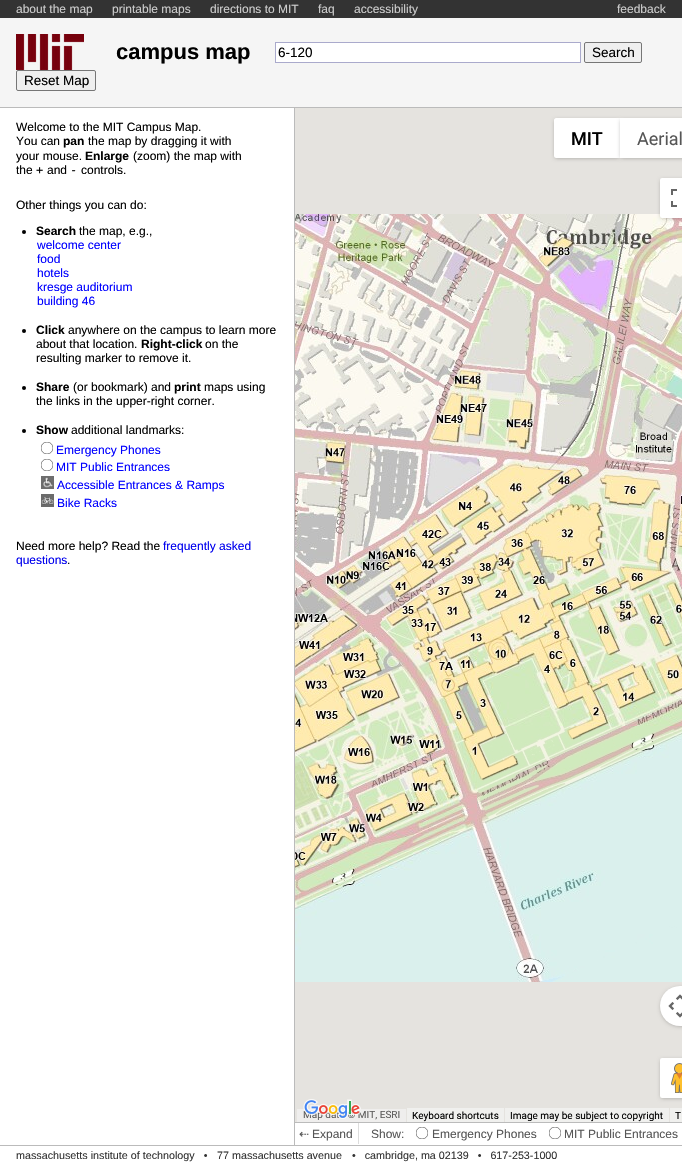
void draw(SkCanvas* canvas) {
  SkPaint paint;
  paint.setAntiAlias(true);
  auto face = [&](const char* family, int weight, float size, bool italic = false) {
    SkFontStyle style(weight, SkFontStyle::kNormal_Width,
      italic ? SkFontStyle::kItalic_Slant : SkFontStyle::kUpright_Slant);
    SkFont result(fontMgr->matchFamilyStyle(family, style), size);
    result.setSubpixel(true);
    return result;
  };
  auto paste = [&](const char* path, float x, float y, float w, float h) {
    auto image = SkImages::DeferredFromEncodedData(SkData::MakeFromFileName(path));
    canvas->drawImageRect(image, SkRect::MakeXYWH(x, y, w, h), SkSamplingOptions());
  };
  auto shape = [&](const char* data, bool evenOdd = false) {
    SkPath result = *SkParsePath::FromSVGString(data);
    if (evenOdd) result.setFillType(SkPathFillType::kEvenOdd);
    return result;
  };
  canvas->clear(0xffffffff);
  {
    const struct { float x, y, w, h; SkColor color; } items[] = {
      {0, 0, 682, 18, 0xff333333},
      {0, 18, 682, 89, 0xfff5f5f5},
      {0, 107, 682, 1, 0xffbbbbbb},
    };
    for (auto [x, y, w, h, color] : items) {
      paint.setColor(color);
      canvas->drawRect(SkRect::MakeXYWH(x, y, w, h), paint);
    }
  }
  paste("img/1.png", 16, 34, 68, 36);
  paint.setColor(0xffffffff);
  canvas->drawRect(SkRect::MakeXYWH(275.5f, 42.5f, 305, 20), paint);
  paint.setStroke(true);
  paint.setStrokeWidth(1);
  paint.setColor(0xffaaaacc);
  canvas->drawRect(SkRect::MakeXYWH(275.5f, 42.5f, 305, 20), paint);
  paint.setStroke(false);
  paint.setColor(0xffefefef);
  canvas->drawRoundRect(SkRect::MakeXYWH(584.5f, 42.5f, 57, 20), 1.5f, 1.5f, paint);
  paint.setStroke(true);
  paint.setColor(0xff767676);
  canvas->drawRoundRect(SkRect::MakeXYWH(584.5f, 42.5f, 57, 20), 1.5f, 1.5f, paint);
  paint.setStroke(false);
  paint.setColor(0xffefefef);
  canvas->drawRoundRect(SkRect::MakeXYWH(16.5f, 70.5f, 79, 20), 1.5f, 1.5f, paint);
  paint.setStroke(true);
  paint.setColor(0xff767676);
  canvas->drawRoundRect(SkRect::MakeXYWH(16.5f, 70.5f, 79, 20), 1.5f, 1.5f, paint);
  paint.setStroke(false);
  {
    const struct { float x, y, w, h; SkColor color; } items[] = {
      {0, 1145, 682, 1, 0xffbbbbbb},
      {294, 1122, 388, 1, 0xffbbbbbb},
      {294, 108, 1, 1037, 0xffbbbbbb},
    };
    for (auto [x, y, w, h, color] : items) {
      paint.setColor(color);
      canvas->drawRect(SkRect::MakeXYWH(x, y, w, h), paint);
    }
  }
  paint.setColor(0xff000000);
  canvas->drawCircle(24, 232, 2, paint);
  canvas->drawCircle(24, 331, 2, paint);
  canvas->drawCircle(24, 388, 2, paint);
  canvas->drawCircle(24, 431, 2, paint);
  paste("img/2.png", 41, 442, 12, 12);
  paste("img/2.png", 41, 459, 12, 12);
  paste("img/3.png", 41, 476, 13, 13);
  paste("img/4.png", 41, 494, 13, 13);
  paint.setColor(0xffe5e3df);
  canvas->drawRect(SkRect::MakeXYWH(295, 108, 387, 1014), paint);
  paint.setColor(0x4d000000);
  paint.setMaskFilter(SkMaskFilter::MakeBlur(kNormal_SkBlurStyle, 2));
  canvas->drawRoundRect(SkRect::MakeXYWH(555, 120, 64, 38), 1, 1, paint);
  paint.setMaskFilter(nullptr);
  paint.setColor(0xffffffff);
  canvas->drawPath(shape("M556 118H620V158H556C555 158 554 157 554 156V120C554 119 555 118 556 118Z"), paint);
  paint.setColor(0x4d000000);
  paint.setMaskFilter(SkMaskFilter::MakeBlur(kNormal_SkBlurStyle, 2));
  canvas->drawRoundRect(SkRect::MakeXYWH(621, 120, 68, 38), 1, 1, paint);
  paint.setMaskFilter(nullptr);
  paint.setColor(0xffffffff);
  canvas->drawRect(SkRect::MakeXYWH(620, 118, 62, 40), paint);
  paste("img/7.png", 477, 214, 205, 256);
  paint.setColor(0x4d000000);
  paint.setMaskFilter(SkMaskFilter::MakeBlur(kNormal_SkBlurStyle, 2));
  canvas->drawRoundRect(SkRect::MakeXYWH(661, 180, 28, 38), 1, 1, paint);
  paint.setMaskFilter(nullptr);
  paint.setColor(0xffffffff);
  canvas->drawRoundRect(SkRect::MakeXYWH(660, 178, 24, 40), 2, 2, paint);
  paste("img/5.png", 671, 189, 6, 18);
  paste("img/6.png", 295, 214, 182, 256);
  paste("img/8.png", 295, 470, 182, 256);
  paste("img/9.png", 477, 470, 205, 256);
  paste("img/10.png", 295, 726, 182, 256);
  paste("img/11.png", 477, 726, 205, 256);
  paint.setColor(0x4d000000);
  paint.setMaskFilter(SkMaskFilter::MakeBlur(kNormal_SkBlurStyle, 2));
  canvas->drawRoundRect(SkRect::MakeXYWH(661, 988, 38, 38), 19, 19, paint);
  paint.setMaskFilter(nullptr);
  paint.setColor(0xffffffff);
  canvas->drawCircle(680, 1006, 20, paint);
  paste("img/12.png", 668, 994, 14, 24);
  paint.setColor(0x4d000000);
  paint.setMaskFilter(SkMaskFilter::MakeBlur(kNormal_SkBlurStyle, 2));
  canvas->drawRoundRect(SkRect::MakeXYWH(661, 1060, 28, 38), 1, 1, paint);
  paint.setMaskFilter(nullptr);
  paint.setColor(0xffffffff);
  canvas->drawRoundRect(SkRect::MakeXYWH(660, 1058, 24, 40), 2, 2, paint);
  paste("img/13.png", 671, 1063, 11, 30);
  {
    const struct { float x, y, w, h; SkColor color; } items[] = {
      {297, 1109, 109, 13, 0xffefeeed},
      {407, 1108, 97, 14, 0xfff0f0ee},
      {505, 1108, 164, 14, 0xfff0f0ee},
      {670, 1108, 12, 14, 0xfff0f0ee},
      {358, 1123, 1, 21, 0xffdddddd},
    };
    for (auto [x, y, w, h, color] : items) {
      paint.setColor(color);
      canvas->drawRect(SkRect::MakeXYWH(x, y, w, h), paint);
    }
  }
  paste("img/2.png", 416, 1127, 12, 12);
  paste("img/2.png", 549, 1127, 12, 12);
  auto f0 = face("Liberation Sans", 400, 12);
  paint.setColor(0xffcccccc);
  {
    const struct { const char* s; float x, y; } items[] = {
      {"about the map", 16, 13},
      {"printable maps", 112, 13},
      {"directions to MIT", 210, 13},
      {"faq", 318, 13},
      {"accessibility", 354, 13},
      {"feedback", 617, 13},
    };
    for (auto [s, x, y] : items) {
      canvas->drawString(s, x, y, f0, paint);
    }
  }
  auto f1 = face("Liberation Sans", 400, 13.5f);
  paint.setColor(0xff000000);
  {
    const struct { const char* s; float x, y; } items[] = {
      {"6-120", 278, 57},
      {"Search", 592, 57},
      {"Reset Map", 24, 85},
    };
    for (auto [s, x, y] : items) {
      canvas->drawString(s, x, y, f1, paint);
    }
  }
  auto f2 = face("Liberation Sans", 700, 22);
  canvas->drawString("campus map", 116, 59, f2, paint);
  canvas->drawString("Welcome to the MIT Campus Map.", 16, 131, f0, paint);
  canvas->drawString("You can", 16, 145, f0, paint);
  auto f3 = face("Liberation Sans", 700, 12);
  canvas->drawString("pan", 63, 145, f3, paint);
  canvas->drawString("the map by dragging it with", 88, 145, f0, paint);
  canvas->drawString("your mouse.", 16, 160, f0, paint);
  canvas->drawString("Enlarge", 85, 160, f3, paint);
  canvas->drawString("(zoom) the map with", 133, 160, f0, paint);
  canvas->drawString("the", 16, 174, f0, paint);
  auto f4 = face("DejaVu Sans Mono", 400, 12);
  canvas->drawString("+", 36, 174, f4, paint);
  canvas->drawString("and", 47, 174, f0, paint);
  canvas->drawString("-", 70, 174, f4, paint);
  canvas->drawString("controls.", 81, 174, f0, paint);
  canvas->drawString("Other things you can do:", 16, 209, f0, paint);
  canvas->drawString("Search", 36, 235, f3, paint);
  canvas->drawString("the map, e.g.,", 79, 235, f0, paint);
  paint.setColor(0xff0000ff);
  {
    const struct { const char* s; float x, y; } items[] = {
      {"welcome center", 37, 249},
      {"food", 37, 263},
      {"hotels", 37, 277},
      {"kresge auditorium", 37, 291},
      {"building 46", 37, 305},
    };
    for (auto [s, x, y] : items) {
      canvas->drawString(s, x, y, f0, paint);
    }
  }
  paint.setColor(0xff000000);
  canvas->drawString("Click", 36, 334, f3, paint);
  canvas->drawString("anywhere on the campus to learn more", 68, 334, f0, paint);
  canvas->drawString("about that location.", 36, 348, f0, paint);
  canvas->drawString("Right-click", 141, 348, f3, paint);
  canvas->drawString("on the", 205, 348, f0, paint);
  canvas->drawString("resulting marker to remove it.", 36, 362, f0, paint);
  canvas->drawString("Share", 36, 391, f3, paint);
  canvas->drawString("(or bookmark) and", 73, 391, f0, paint);
  canvas->drawString("print", 174, 391, f3, paint);
  canvas->drawString("maps using", 204, 391, f0, paint);
  canvas->drawString("the links in the upper-right corner.", 36, 405, f0, paint);
  canvas->drawString("Show", 36, 434, f3, paint);
  canvas->drawString("additional landmarks:", 71, 434, f0, paint);
  paint.setColor(0xff0000ff);
  {
    const struct { const char* s; float x, y; } items[] = {
      {"Emergency Phones", 56, 454},
      {"MIT Public Entrances", 56, 471},
      {"Accessible Entrances & Ramps", 57, 489},
      {"Bike Racks", 57, 507},
    };
    for (auto [s, x, y] : items) {
      canvas->drawString(s, x, y, f0, paint);
    }
  }
  paint.setColor(0xff000000);
  canvas->drawString("Need more help? Read the", 16, 550, f0, paint);
  paint.setColor(0xff0000ee);
  canvas->drawString("frequently asked", 163, 550, f0, paint);
  canvas->drawString("questions", 16, 564, f0, paint);
  paint.setColor(0xff000000);
  canvas->drawString(".", 67, 564, f0, paint);
  auto f5 = face("Roboto", 500, 18);
  canvas->drawString("MIT", 571, 145, f5, paint);
  auto f6 = face("Roboto", 400, 18);
  paint.setColor(0xff565656);
  canvas->drawString("Aerial", 637, 145, f6, paint);
  auto f7 = face("Roboto", 400, 10);
  paint.setColor(0xff5d5c5b);
  canvas->drawString("Map data © MIT, ESRI", 303, 1118, f7, paint);
  paste("img/14.png", 303, 1099, 58, 20);
  paint.setColor(0xff000000);
  {
    const struct { const char* s; float x, y; } items[] = {
      {"Keyboard shortcuts", 412, 1119},
      {"Image may be subject to copyright", 510, 1119},
      {"T", 675, 1119},
    };
    for (auto [s, x, y] : items) {
      canvas->drawString(s, x, y, f7, paint);
    }
  }
  auto f8 = face("DejaVu Sans", 400, 12);
  paint.setColor(0xff565656);
  canvas->drawString("⇠", 299, 1138, f8, paint);
  {
    const struct { const char* s; float x, y; } items[] = {
      {"Expand", 312, 1138},
      {"Show:", 371, 1138},
      {"Emergency Phones", 432, 1138},
      {"MIT Public Entrances", 564, 1138},
    };
    for (auto [s, x, y] : items) {
      canvas->drawString(s, x, y, f0, paint);
    }
  }
  auto f9 = face("Liberation Sans", 400, 10.75f);
  paint.setColor(0xff333333);
  {
    const struct { const char* s; float x, y; } items[] = {
      {"massachusetts institute of technology   •", 16, 1159},
      {"77 massachusetts avenue", 217, 1159},
      {"•   cambridge, ma 02139   •   617-253-1000", 352, 1159},
    };
    for (auto [s, x, y] : items) {
      canvas->drawString(s, x, y, f9, paint);
    }
  }
}
